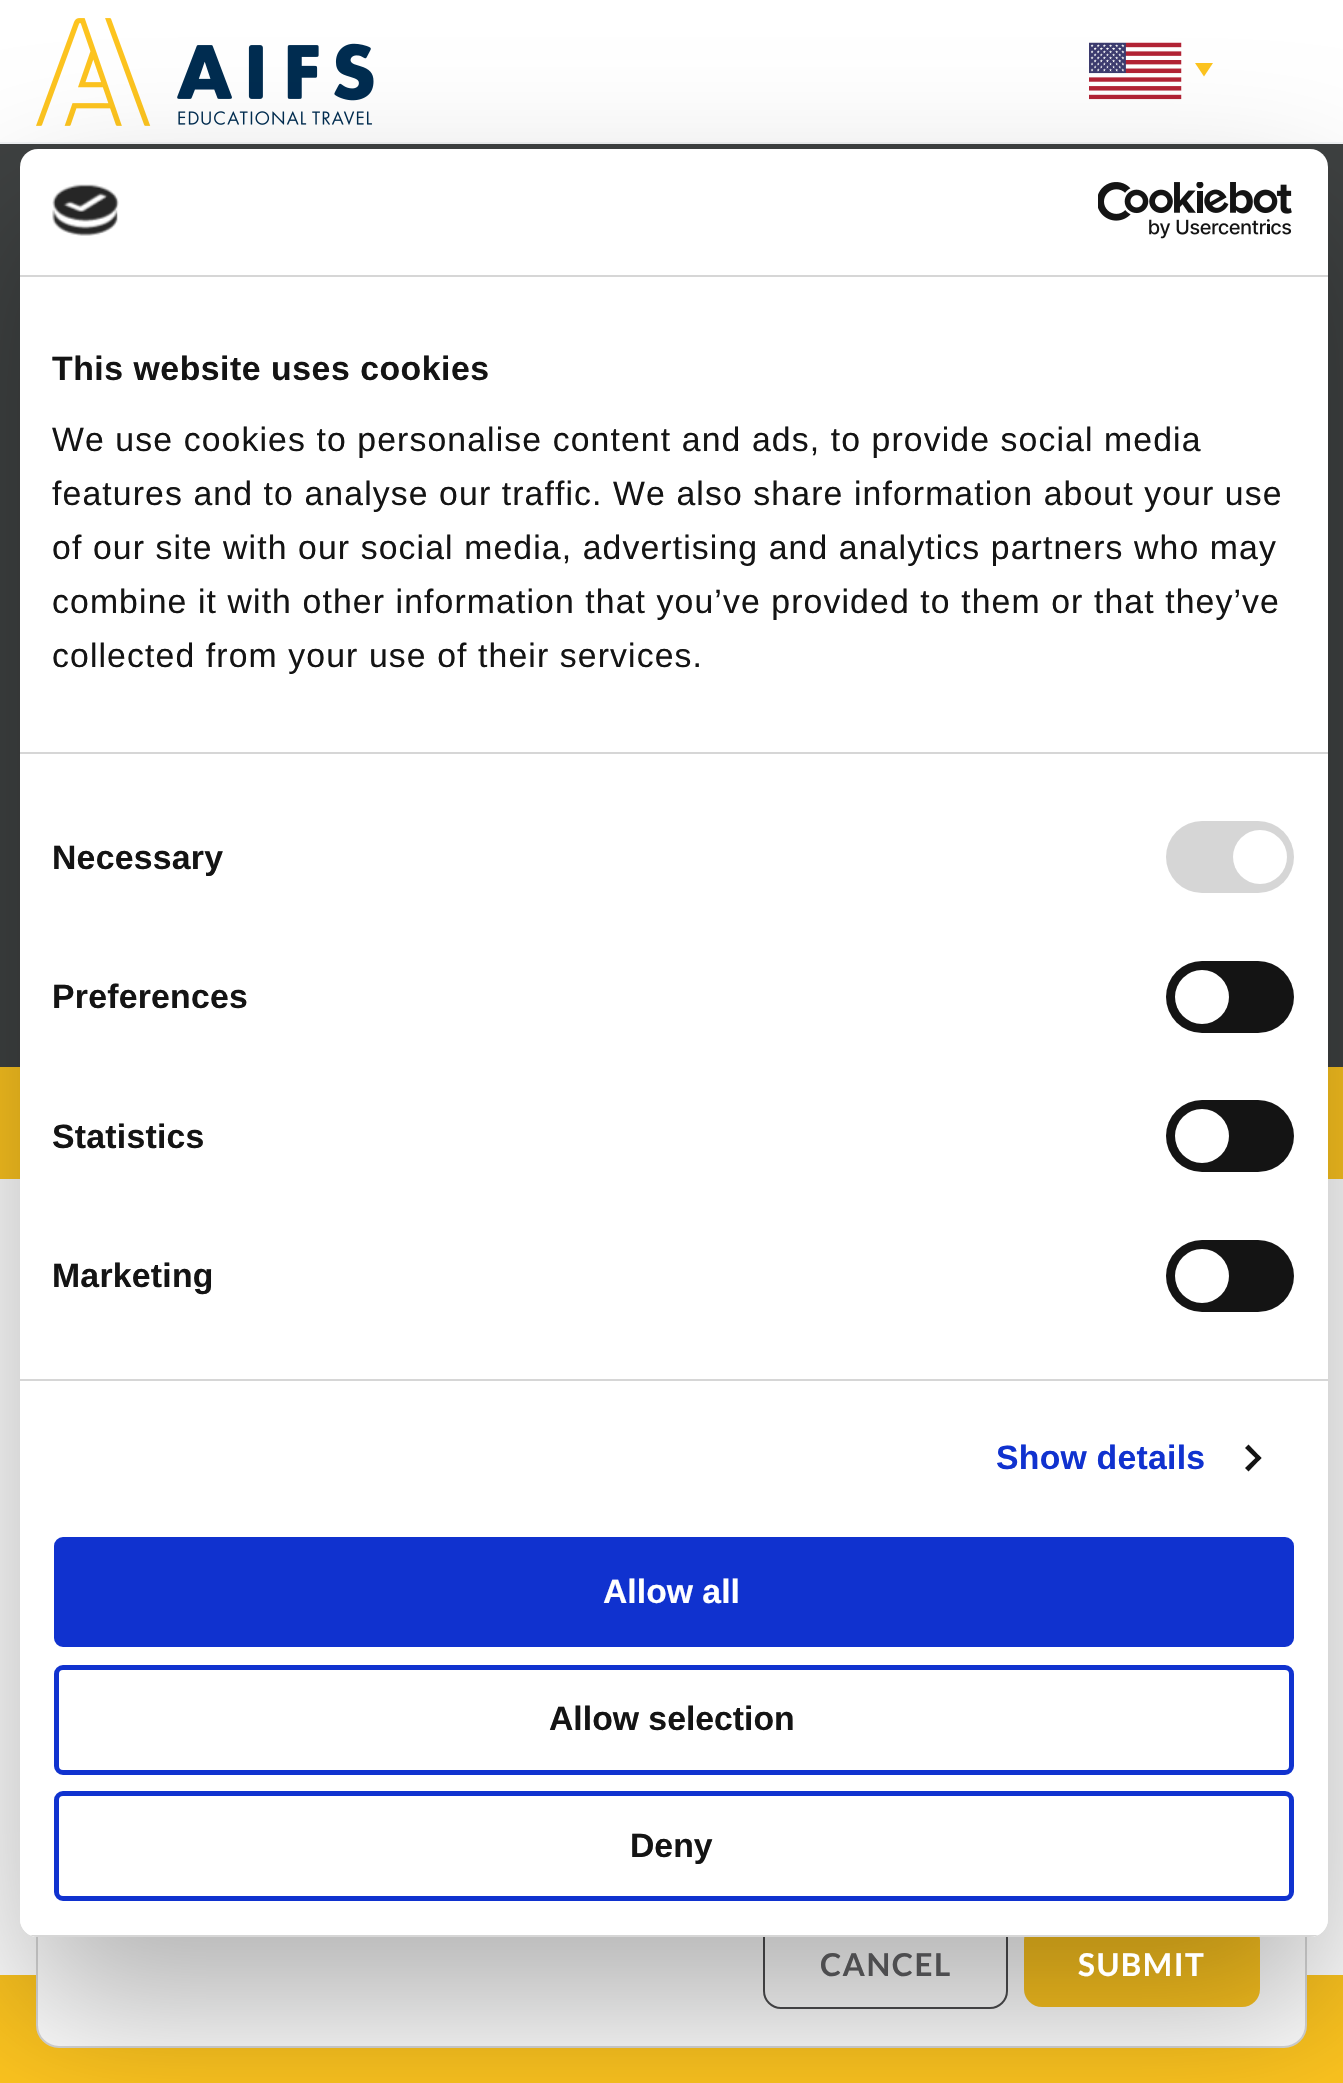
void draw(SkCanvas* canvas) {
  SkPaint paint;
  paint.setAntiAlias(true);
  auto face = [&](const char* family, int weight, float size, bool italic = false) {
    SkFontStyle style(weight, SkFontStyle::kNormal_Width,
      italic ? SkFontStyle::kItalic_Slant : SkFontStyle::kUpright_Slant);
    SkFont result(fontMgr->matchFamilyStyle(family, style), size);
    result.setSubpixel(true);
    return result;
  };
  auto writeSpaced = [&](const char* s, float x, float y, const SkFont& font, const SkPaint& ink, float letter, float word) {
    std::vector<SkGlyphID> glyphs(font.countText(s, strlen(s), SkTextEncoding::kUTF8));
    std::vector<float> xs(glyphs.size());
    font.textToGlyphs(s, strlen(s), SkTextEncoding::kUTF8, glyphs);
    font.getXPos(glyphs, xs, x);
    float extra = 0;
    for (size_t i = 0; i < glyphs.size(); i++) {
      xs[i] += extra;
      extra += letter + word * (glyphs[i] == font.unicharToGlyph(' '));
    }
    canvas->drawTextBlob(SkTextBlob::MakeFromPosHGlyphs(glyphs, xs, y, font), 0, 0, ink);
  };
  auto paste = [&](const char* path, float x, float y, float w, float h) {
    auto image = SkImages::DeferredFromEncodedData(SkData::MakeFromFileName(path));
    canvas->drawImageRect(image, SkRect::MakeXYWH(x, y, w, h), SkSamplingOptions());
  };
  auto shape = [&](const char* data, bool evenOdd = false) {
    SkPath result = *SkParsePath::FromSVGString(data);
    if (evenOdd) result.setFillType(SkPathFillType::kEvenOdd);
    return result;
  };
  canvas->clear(0xff3e4141);
  paint.setColor(0xffffffff);
  canvas->drawRect(SkRect::MakeXYWH(0, 0, 1343, 142), paint);
  paint.setColor(0xfff2f4f6);
  canvas->drawRect(SkRect::MakeXYWH(0, 142, 1343, 2), paint);
  paste("img/3.png", 36, 18, 338, 108);
  paste("img/4.png", 1089, 42, 93, 58);
  paint.setColor(0xfffdc41f);
  canvas->drawPath(shape("M1195 63H1213L1204 76.5Z"), paint);
  {
    const struct { float x, y, w, h; SkColor color; } items[] = {
      {0, 1067, 1343, 112, 0xfffdc41f},
      {0, 1179, 1343, 796, 0xffffffff},
      {0, 1975, 1343, 108, 0xfffdc41f},
    };
    for (auto [x, y, w, h, color] : items) {
      paint.setColor(color);
      canvas->drawRect(SkRect::MakeXYWH(x, y, w, h), paint);
    }
  }
  paint.setColor(0xffffffff);
  canvas->drawRoundRect(SkRect::MakeXYWH(37, 892, 1269, 1155), 22, 22, paint);
  paint.setStroke(true);
  paint.setStrokeWidth(2);
  paint.setColor(0xffd7d7d7);
  canvas->drawRoundRect(SkRect::MakeXYWH(37, 892, 1269, 1155), 22, 22, paint);
  paint.setColor(0xff4d4d4f);
  canvas->drawRoundRect(SkRect::MakeXYWH(764, 1920, 243, 88), 17, 17, paint);
  paint.setStroke(false);
  paint.setColor(0xfffdc41f);
  canvas->drawRoundRect(SkRect::MakeXYWH(1024, 1922, 236, 85), 18, 18, paint);
  canvas->save();
  canvas->clipPath(shape("M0 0H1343V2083H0ZM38 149H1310C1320 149 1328 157 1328 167V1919C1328 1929 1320 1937 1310 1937H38C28 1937 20 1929 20 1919V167C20 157 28 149 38 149Z", true), true);
  paint.setColor(0x4d000000);
  paint.setMaskFilter(SkMaskFilter::MakeBlur(kNormal_SkBlurStyle, 76.5f));
  canvas->drawRoundRect(SkRect::MakeXYWH(20, 221, 1308, 1788), 18, 18, paint);
  paint.setMaskFilter(nullptr);
  canvas->restore();
  paint.setColor(0xffffffff);
  canvas->drawRoundRect(SkRect::MakeXYWH(20, 149, 1308, 1788), 18, 18, paint);
  paint.setColor(0xffd6d6d6);
  canvas->drawRect(SkRect::MakeXYWH(20, 275, 1308, 2), paint);
  paste("img/1.png", 52, 184, 67, 52);
  paste("img/2.png", 1098, 182, 194, 57);
  canvas->drawRect(SkRect::MakeXYWH(20, 752, 1308, 2), paint);
  canvas->drawRect(SkRect::MakeXYWH(20, 1379, 1308, 2), paint);
  canvas->drawRoundRect(SkRect::MakeXYWH(1166, 821, 128, 72), 36, 36, paint);
  paint.setColor(0xffffffff);
  canvas->drawCircle(1260, 857, 27, paint);
  paint.setColor(0xff141414);
  canvas->drawRoundRect(SkRect::MakeXYWH(1166, 961, 128, 72), 36, 36, paint);
  paint.setColor(0xffffffff);
  canvas->drawCircle(1202, 997, 27, paint);
  paint.setColor(0xff141414);
  canvas->drawRoundRect(SkRect::MakeXYWH(1166, 1100, 128, 72), 36, 36, paint);
  paint.setColor(0xffffffff);
  canvas->drawCircle(1202, 1136, 27, paint);
  paint.setColor(0xff141414);
  canvas->drawRoundRect(SkRect::MakeXYWH(1166, 1240, 128, 72), 36, 36, paint);
  paint.setColor(0xffffffff);
  canvas->drawCircle(1202, 1276, 27, paint);
  paint.setColor(0xff141414);
  canvas->drawPath(shape("M1248.5 1444.5L1261.5 1458L1258.5 1461L1245 1448Z"), paint);
  canvas->drawPath(shape("M1258.5 1455L1261.5 1458L1248.5 1471.5L1245 1468Z"), paint);
  canvas->save();
  canvas->clipPath(shape("M38 149H1310C1320 149 1328 157 1328 167V1919C1328 1929 1320 1937 1310 1937H38C28 1937 20 1929 20 1919V167C20 157 28 149 38 149Z"), true);
  paint.setColor(0xffd6d6d6);
  canvas->drawRect(SkRect::MakeXYWH(30, 1935, 1288, 2), paint);
  canvas->restore();
  paint.setColor(0xff1032cf);
  canvas->drawRoundRect(SkRect::MakeXYWH(56.5f, 1539.5f, 1235, 105), 6.5f, 6.5f, paint);
  paint.setStroke(true);
  paint.setStrokeWidth(5);
  canvas->drawRoundRect(SkRect::MakeXYWH(56.5f, 1539.5f, 1235, 105), 6.5f, 6.5f, paint);
  canvas->drawRoundRect(SkRect::MakeXYWH(56.5f, 1667.5f, 1235, 105), 6.5f, 6.5f, paint);
  canvas->drawRoundRect(SkRect::MakeXYWH(56.5f, 1793.5f, 1235, 105), 6.5f, 6.5f, paint);
  auto f0 = face("Liberation Sans", 700, 33.75f);
  paint.setStroke(false);
  paint.setColor(0xff141414);
  writeSpaced("This website uses cookies", 52, 380, f0, paint, 0.55f, 0);
  auto f1 = face("Liberation Sans", 400, 33.75f);
  {
    const struct { const char* s; float x, y; } items[] = {
      {"We use cookies to personalise content and ads, to provide social media", 52, 451},
      {"features and to analyse our traffic. We also share information about your use", 52, 505},
      {"of our site with our social media, advertising and analytics partners who may", 52, 559},
      {"combine it with other information that you’ve provided to them or that they’ve", 52, 613},
      {"collected from your use of their services.", 52, 667},
    };
    for (auto [s, x, y] : items) {
      writeSpaced(s, x, y, f1, paint, 1.12f, 0);
    }
  }
  {
    const struct { const char* s; float x, y; } items[] = {
      {"Necessary", 52, 869},
      {"Preferences", 52, 1008},
      {"Statistics", 52, 1148},
      {"Marketing", 52, 1287},
    };
    for (auto [s, x, y] : items) {
      writeSpaced(s, x, y, f0, paint, 0.25f, 0);
    }
  }
  paint.setColor(0xff1032cf);
  writeSpaced("Show details", 996, 1469, f0, paint, 0.25f, 0);
  paint.setColor(0xffffffff);
  canvas->drawString("Allow all", 603, 1603, f0, paint);
  paint.setColor(0xff141414);
  canvas->drawString("Allow selection", 549, 1730, f0, paint);
  canvas->drawString("Deny", 630, 1857, f0, paint);
  auto f2 = face("Lato", 700, 31.5f);
  paint.setColor(0xff4d4d4f);
  writeSpaced("CANCEL", 820, 1976, f2, paint, 1.5f, 0);
  paint.setColor(0xffffffff);
  writeSpaced("SUBMIT", 1078, 1976, f2, paint, 1.5f, 0);
}
